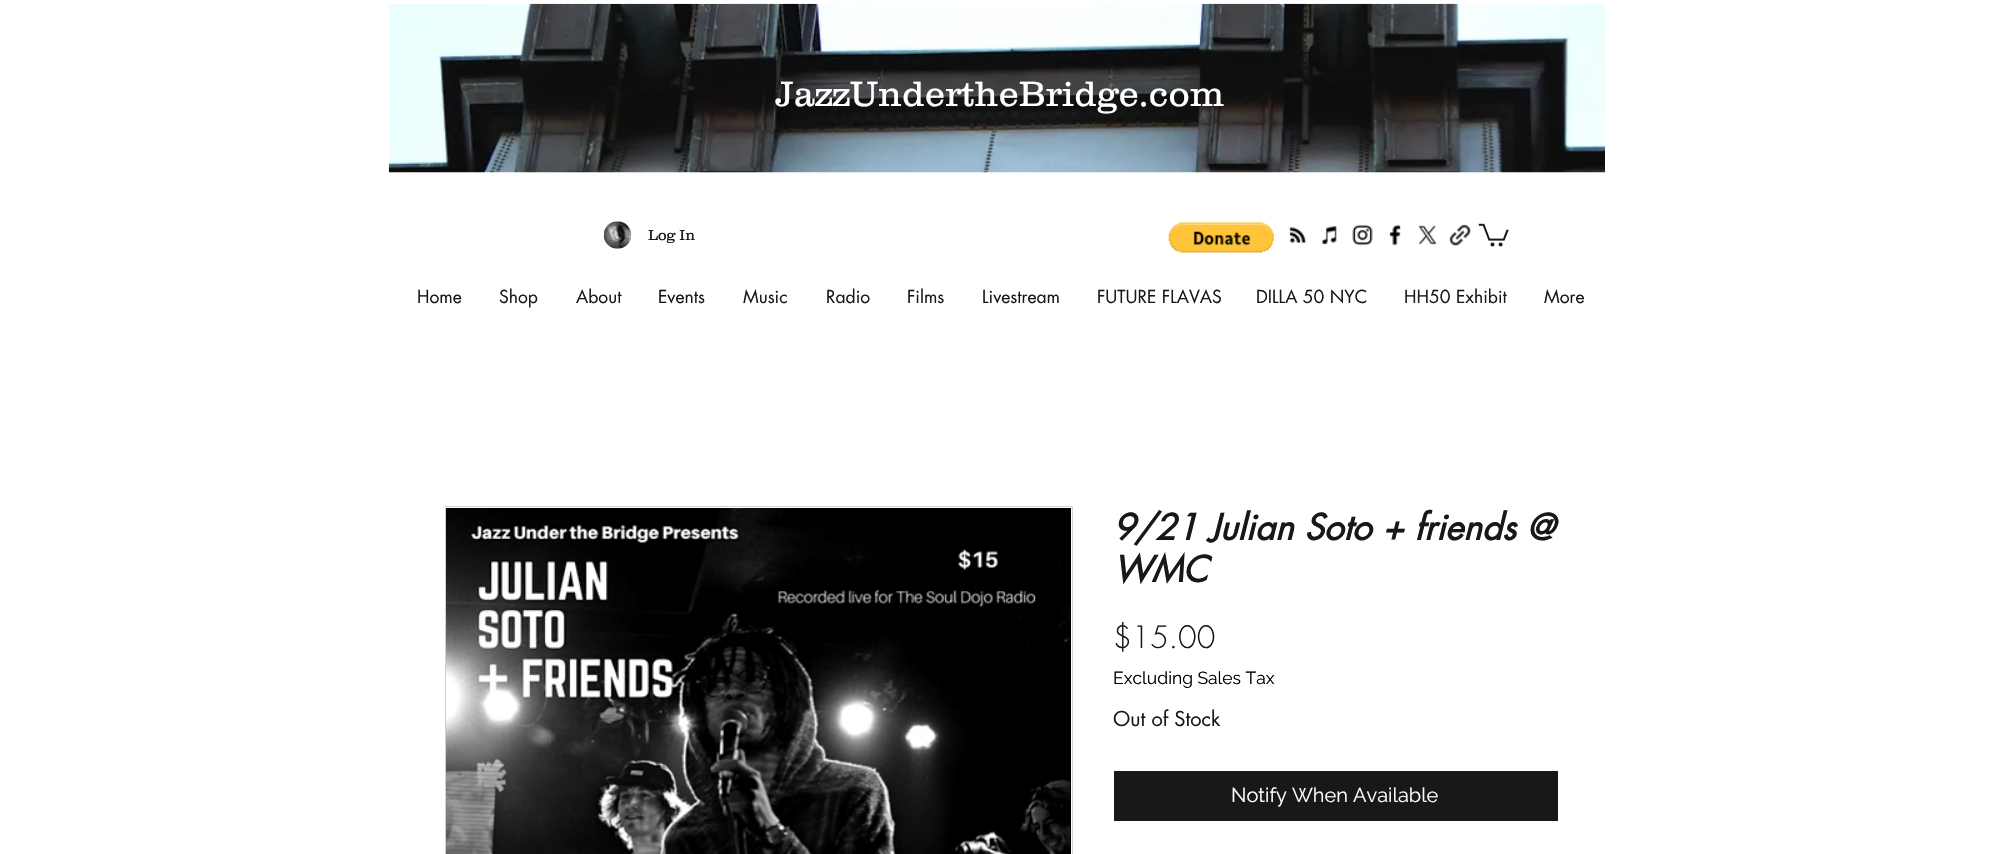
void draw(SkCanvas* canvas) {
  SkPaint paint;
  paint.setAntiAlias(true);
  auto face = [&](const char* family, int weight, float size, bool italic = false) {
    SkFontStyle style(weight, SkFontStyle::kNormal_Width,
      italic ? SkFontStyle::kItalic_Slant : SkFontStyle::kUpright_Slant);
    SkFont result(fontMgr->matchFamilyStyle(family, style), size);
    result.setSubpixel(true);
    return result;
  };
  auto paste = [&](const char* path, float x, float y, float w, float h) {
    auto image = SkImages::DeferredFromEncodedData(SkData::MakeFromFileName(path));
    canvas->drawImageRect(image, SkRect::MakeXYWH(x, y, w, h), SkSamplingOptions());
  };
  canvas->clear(0xffffffff);
  paste("img/1.png", 388, 3, 1217, 170);
  paste("img/2.png", 603, 221, 29, 28);
  paste("img/3.png", 1168, 222, 106, 31);
  paste("img/4.png", 1289, 227, 18, 17);
  paste("img/5.png", 1321, 226, 16, 19);
  paste("img/6.png", 1352, 224, 21, 22);
  paste("img/7.png", 1389, 224, 12, 22);
  paste("img/8.png", 1418, 225, 19, 20);
  paste("img/9.png", 1449, 224, 22, 23);
  paste("img/10.png", 1478, 223, 31, 24);
  paint.setStroke(true);
  paint.setStrokeWidth(1);
  paint.setColor(0xffd1d1d1);
  canvas->drawRect(SkRect::MakeXYWH(445.5f, 506.5f, 627, 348), paint);
  paste("img/11.png", 446, 508, 625, 346);
  paint.setStroke(false);
  paint.setColor(0xff181818);
  canvas->drawRect(SkRect::MakeXYWH(1114, 771, 444, 50), paint);
  auto f0 = face("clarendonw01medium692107", 300, 36.25f);
  paint.setColor(0xffffffff);
  canvas->drawString("JazzUndertheBridge.com", 776, 106, f0, paint);
  auto f1 = face("clarendonw01medium692107", 300, 15);
  paint.setColor(0xff181818);
  canvas->drawString("Log In", 648, 240, f1, paint);
  auto f2 = face("futura", 400, 17.5f);
  {
    const struct { const char* s; float x, y; } items[] = {
      {"Home", 417, 303},
      {"Shop", 499, 303},
      {"About", 576, 303},
      {"Events", 658, 303},
      {"Music", 743, 303},
      {"Radio", 826, 303},
      {"Films", 907, 303},
      {"Livestream", 982, 303},
      {"FUTURE FLAVAS", 1097, 303},
      {"DILLA 50 NYC", 1256, 303},
      {"HH50 Exhibit", 1404, 303},
      {"More", 1544, 303},
    };
    for (auto [s, x, y] : items) {
      canvas->drawString(s, x, y, f2, paint);
    }
  }
  auto f3 = face("futura", 700, 35, true);
  canvas->drawString("9/21 Julian Soto + friends @", 1113, 540, f3, paint);
  canvas->drawString("WMC", 1113, 582, f3, paint);
  auto f4 = face("futura", 300, 30);
  canvas->drawString("$15.00", 1113, 648, f4, paint);
  auto f5 = face("Raleway", 400, 17.5f);
  paint.setColor(0xff000000);
  canvas->drawString("Excluding Sales Tax", 1113, 684, f5, paint);
  auto f6 = face("futura", 400, 20);
  paint.setColor(0xff181818);
  canvas->drawString("Out of Stock", 1113, 726, f6, paint);
  auto f7 = face("Raleway", 400, 20);
  paint.setColor(0xffffffff);
  canvas->drawString("Notify When Available", 1231, 802, f7, paint);
}
